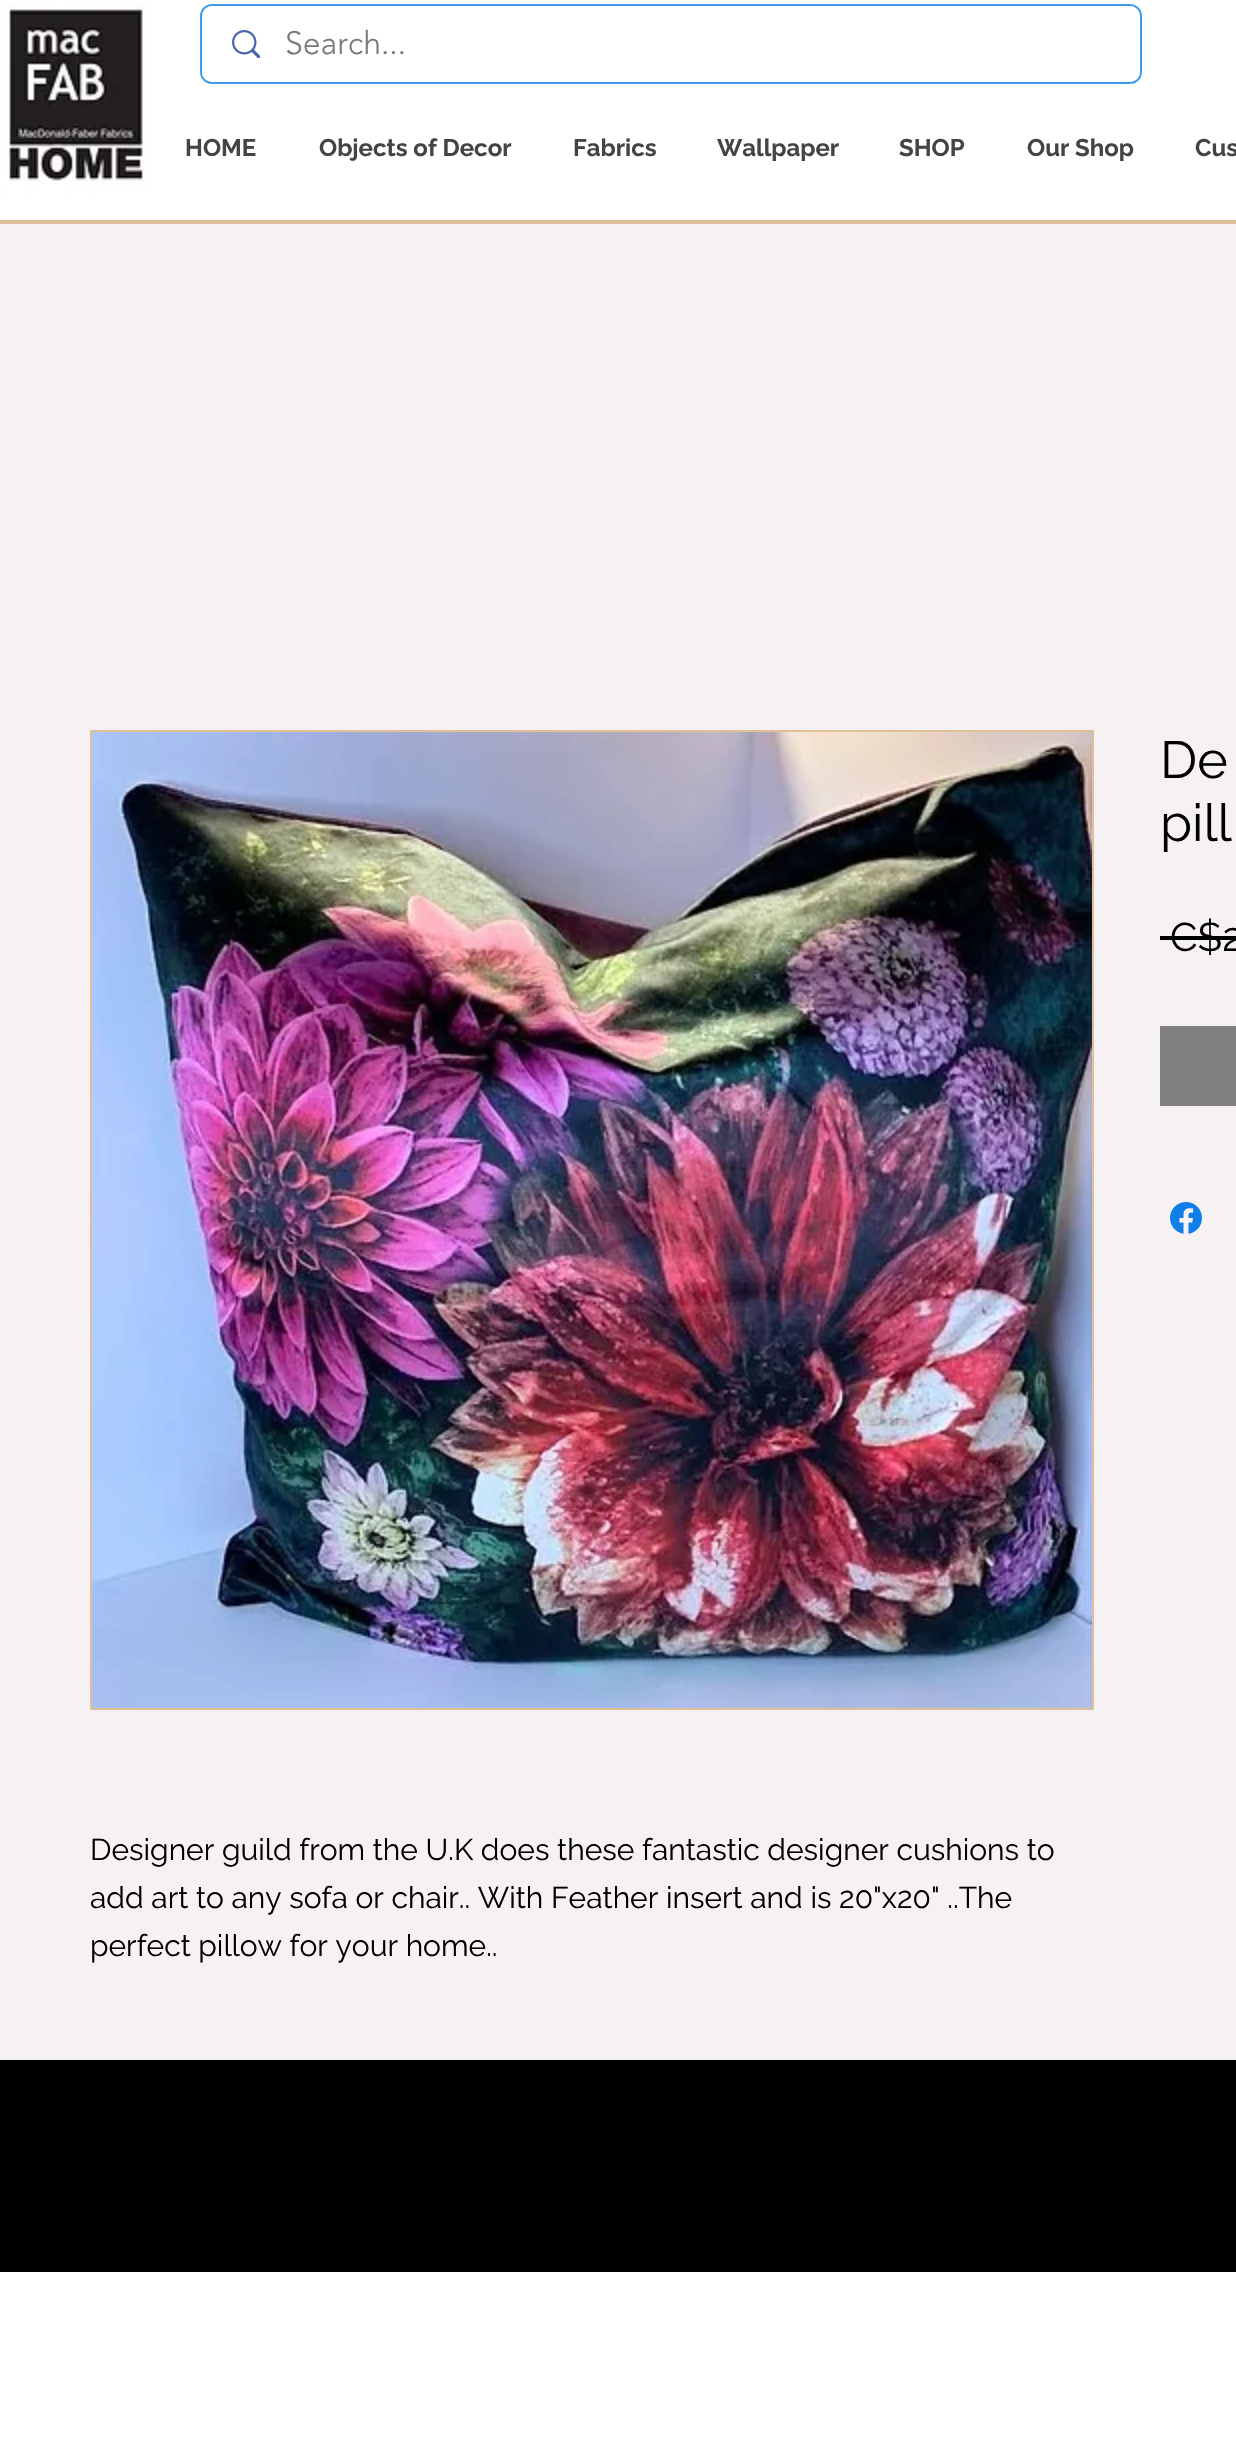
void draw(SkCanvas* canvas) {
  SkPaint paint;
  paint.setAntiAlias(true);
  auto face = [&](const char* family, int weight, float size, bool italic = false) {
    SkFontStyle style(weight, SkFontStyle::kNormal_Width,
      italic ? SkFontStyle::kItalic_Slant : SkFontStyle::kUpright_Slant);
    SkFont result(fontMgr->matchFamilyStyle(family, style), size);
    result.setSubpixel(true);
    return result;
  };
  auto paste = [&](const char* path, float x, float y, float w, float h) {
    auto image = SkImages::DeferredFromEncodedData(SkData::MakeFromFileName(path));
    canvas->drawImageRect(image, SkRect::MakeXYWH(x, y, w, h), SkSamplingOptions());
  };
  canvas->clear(0xffffffff);
  paste("img/1.png", 0, 4, 152, 192);
  paint.setStroke(true);
  paint.setStrokeWidth(2);
  paint.setColor(0xff3d9be9);
  canvas->drawRoundRect(SkRect::MakeXYWH(201, 5, 940, 78), 11, 11, paint);
  paint.setStroke(false);
  paint.setColor(0xabffffff);
  canvas->drawRoundRect(SkRect::MakeXYWH(202, 6, 938, 76), 10, 10, paint);
  paste("img/2.png", 232, 30, 28, 28);
  {
    const struct { float x, y, w, h; SkColor color; } items[] = {
      {0, 220, 1236, 4, 0xffe0be9a},
      {0, 224, 1236, 1836, 0xfff6f1f2},
      {1160, 936, 76, 4, 0xff000000},
      {1160, 1026, 76, 80, 0xff808080},
    };
    for (auto [x, y, w, h, color] : items) {
      paint.setColor(color);
      canvas->drawRect(SkRect::MakeXYWH(x, y, w, h), paint);
    }
  }
  paste("img/3.png", 1170, 1202, 32, 32);
  paint.setStroke(true);
  paint.setColor(0xffe0be9a);
  canvas->drawRect(SkRect::MakeXYWH(91, 731, 1002, 978), paint);
  paste("img/4.png", 92, 732, 1000, 976);
  paint.setStroke(false);
  paint.setColor(0xff000000);
  canvas->drawRect(SkRect::MakeXYWH(0, 2060, 1236, 212), paint);
  auto f0 = face("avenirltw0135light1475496", 300, 32);
  paint.setColor(0xff787878);
  canvas->drawString("Search...", 285, 54, f0, paint);
  auto f1 = face("Raleway", 700, 24);
  paint.setColor(0xff444444);
  {
    const struct { const char* s; float x, y; } items[] = {
      {"HOME", 185, 156},
      {"Objects of Decor", 319, 156},
      {"Fabrics", 573, 156},
      {"Wallpaper", 717, 156},
      {"SHOP", 899, 156},
      {"Our Shop", 1027, 156},
      {"Cus", 1195, 156},
    };
    for (auto [s, x, y] : items) {
      canvas->drawString(s, x, y, f1, paint);
    }
  }
  auto f2 = face("Raleway", 400, 52);
  paint.setColor(0xff000000);
  canvas->drawString("De", 1160, 778, f2, paint);
  canvas->drawString("pill", 1160, 841, f2, paint);
  auto f3 = face("Raleway", 400, 40);
  canvas->drawString("C$2", 1170, 951, f3, paint);
  auto f4 = face("Raleway", 400, 30);
  {
    const struct { const char* s; float x, y; } items[] = {
      {"Designer guild from the U.K does these fantastic designer cushions to", 90, 1860},
      {"add art to any sofa or chair.. With Feather insert and is 20\"x20\" ..The", 90, 1908},
      {"perfect pillow for your home..", 90, 1956},
    };
    for (auto [s, x, y] : items) {
      canvas->drawString(s, x, y, f4, paint);
    }
  }
}
